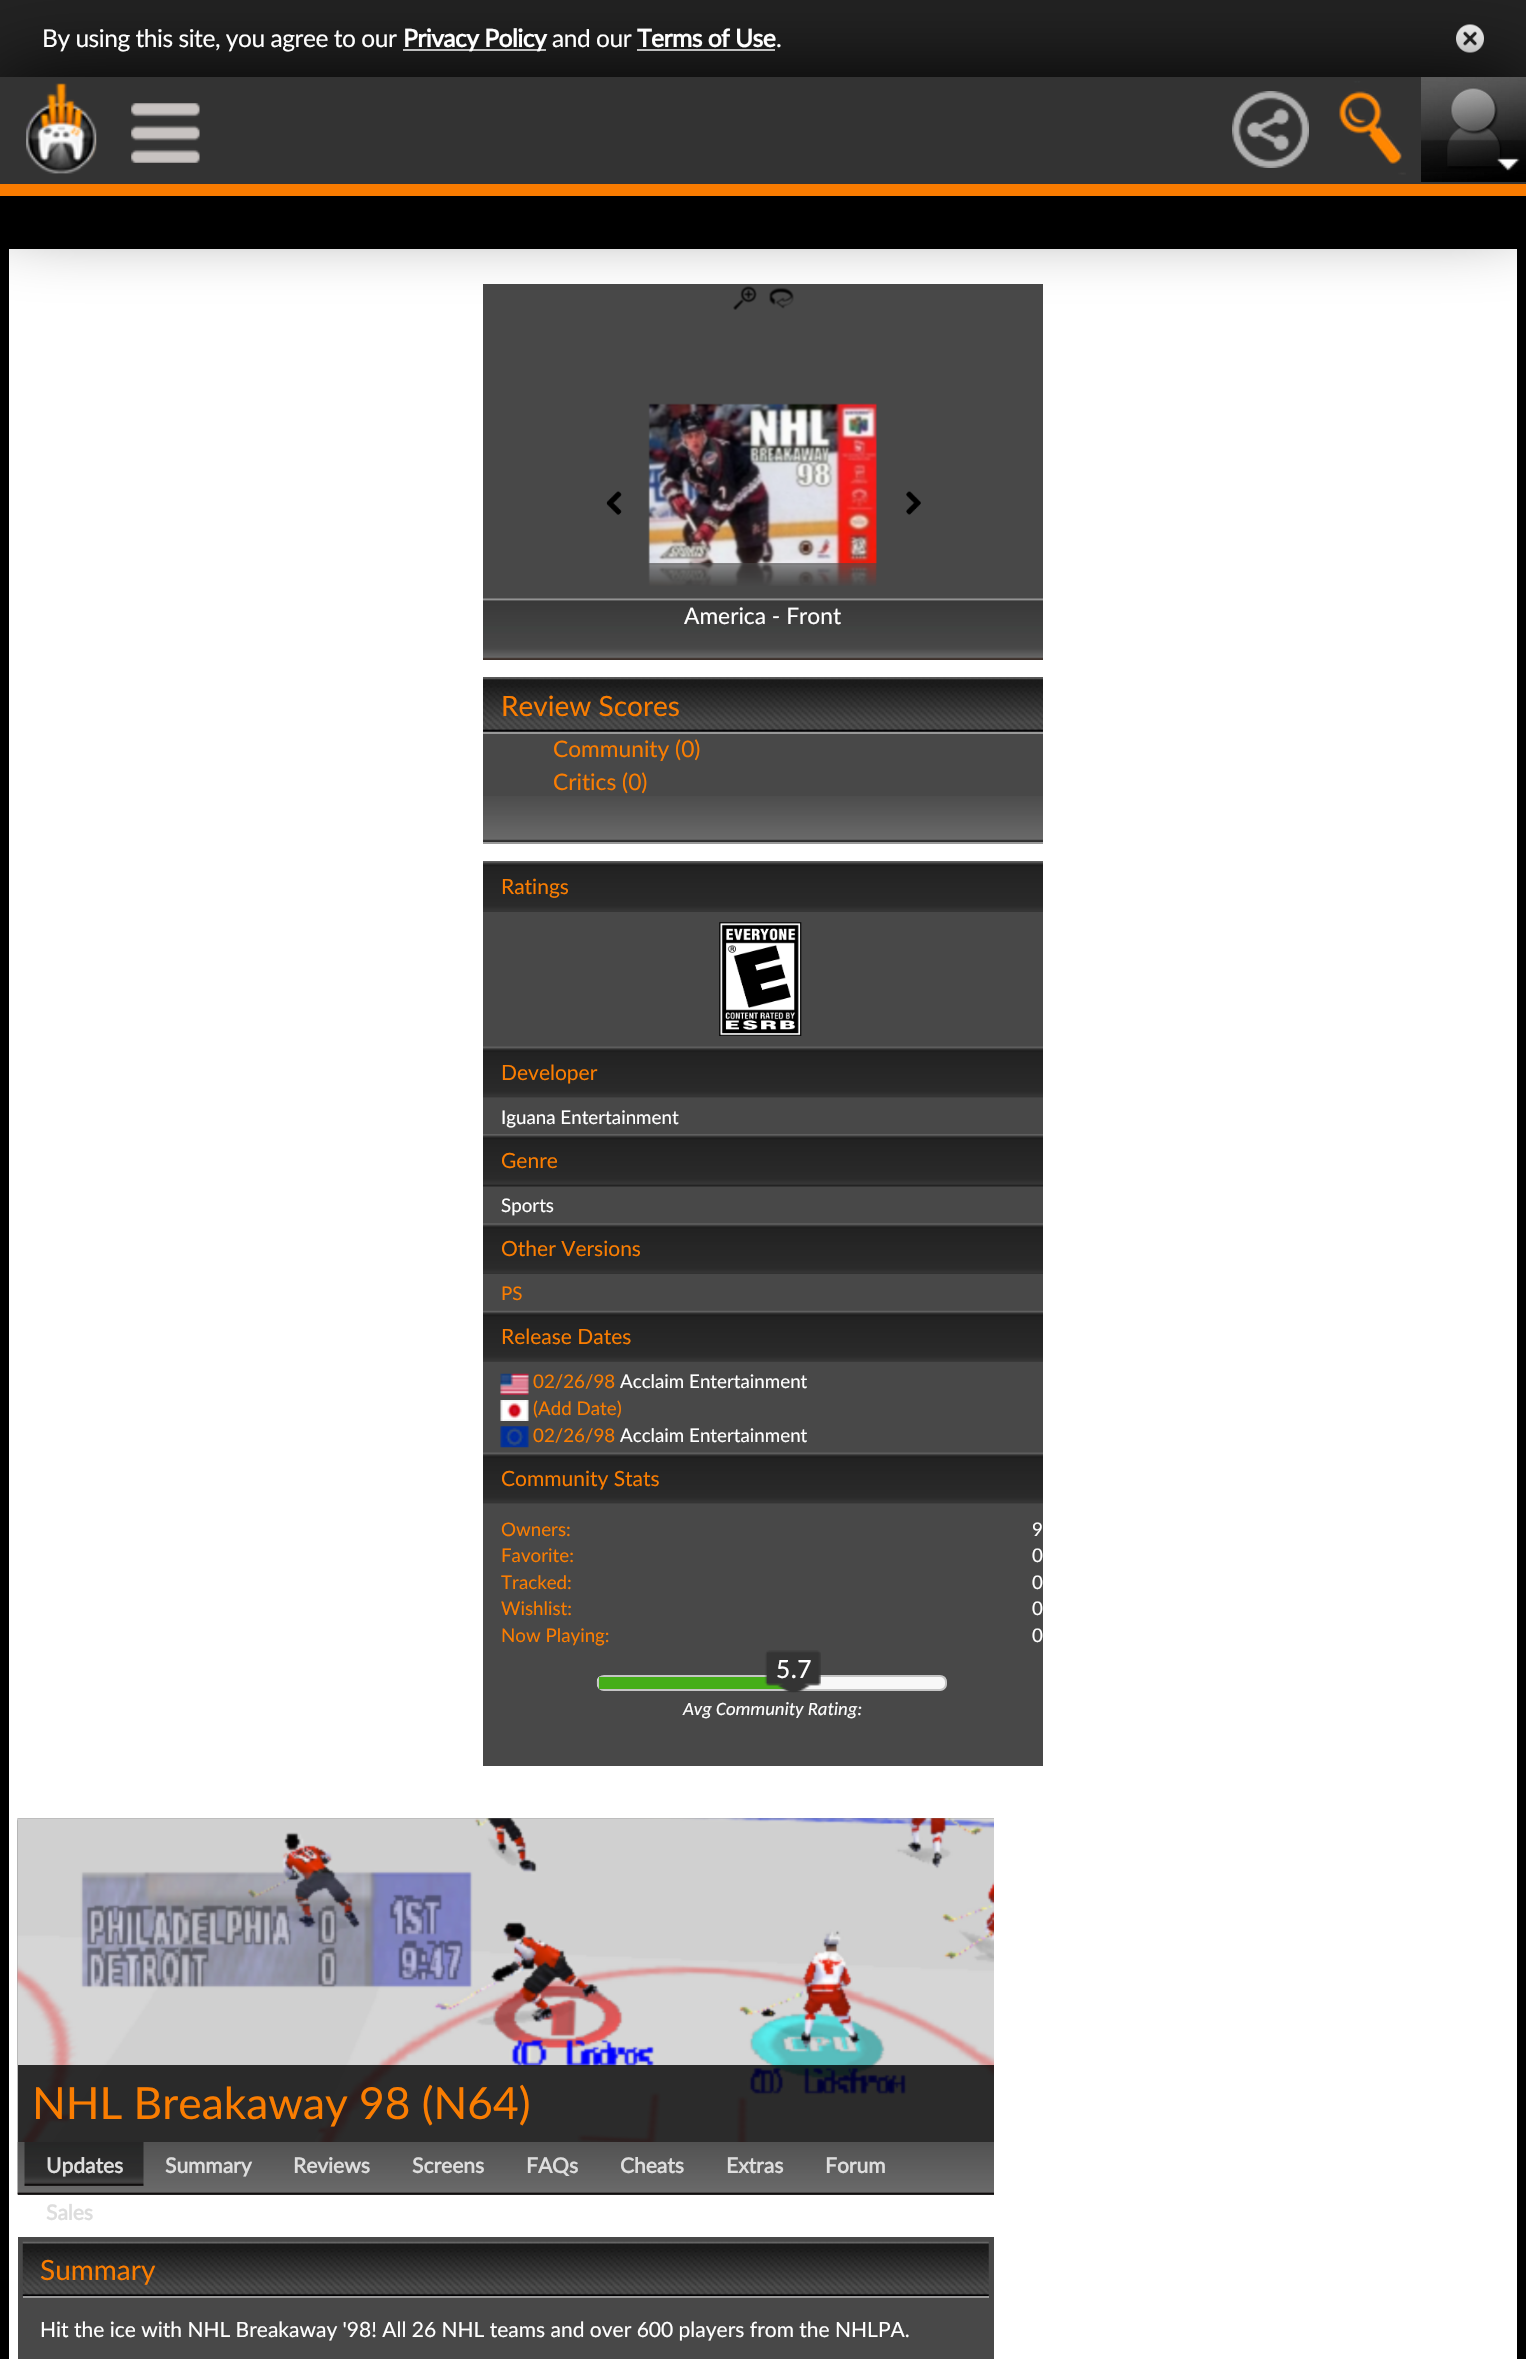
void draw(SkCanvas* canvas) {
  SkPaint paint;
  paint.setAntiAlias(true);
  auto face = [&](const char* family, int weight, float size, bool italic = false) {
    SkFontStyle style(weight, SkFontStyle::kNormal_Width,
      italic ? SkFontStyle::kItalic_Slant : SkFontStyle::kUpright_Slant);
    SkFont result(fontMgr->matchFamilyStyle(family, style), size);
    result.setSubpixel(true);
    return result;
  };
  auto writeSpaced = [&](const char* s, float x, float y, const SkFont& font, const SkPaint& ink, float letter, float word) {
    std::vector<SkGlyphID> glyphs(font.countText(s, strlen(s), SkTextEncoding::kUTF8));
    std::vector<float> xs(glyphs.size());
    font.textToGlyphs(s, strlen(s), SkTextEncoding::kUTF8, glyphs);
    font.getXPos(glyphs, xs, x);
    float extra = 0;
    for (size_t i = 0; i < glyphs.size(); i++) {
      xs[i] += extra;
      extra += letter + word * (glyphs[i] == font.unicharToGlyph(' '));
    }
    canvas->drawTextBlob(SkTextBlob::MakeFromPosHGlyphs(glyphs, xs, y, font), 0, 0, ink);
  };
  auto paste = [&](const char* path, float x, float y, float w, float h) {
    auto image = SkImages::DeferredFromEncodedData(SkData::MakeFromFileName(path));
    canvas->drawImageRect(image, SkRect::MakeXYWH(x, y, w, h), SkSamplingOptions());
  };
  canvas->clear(0xff000000);
  {
    const struct { float x, y, w, h; SkColor color; } items[] = {
      {0, 0, 1526, 77, 0xff222222},
      {403, 49, 143, 2, 0xffffffff},
      {637, 49, 138, 2, 0xffffffff},
    };
    for (auto [x, y, w, h, color] : items) {
      paint.setColor(color);
      canvas->drawRect(SkRect::MakeXYWH(x, y, w, h), paint);
    }
  }
  paste("img/7.png", 1456, 24, 28, 29);
  canvas->drawRect(SkRect::MakeXYWH(9, 249, 1508, 2110), paint);
  paint.setColor(0xff484848);
  canvas->drawRect(SkRect::MakeXYWH(483, 284, 560, 376), paint);
  paste("img/11.png", 733, 286, 24, 24);
  paste("img/12.png", 769, 287, 25, 22);
  paint.setColor(0xff000000);
  paint.setMaskFilter(SkMaskFilter::MakeBlur(kNormal_SkBlurStyle, 44));
  canvas->drawRect(SkRect::MakeXYWH(0, 79, 1526, 119), paint);
  paint.setMaskFilter(nullptr);
  paint.setColor(0xff333333);
  canvas->drawRect(SkRect::MakeXYWH(0, 77, 1526, 107), paint);
  paste("img/1.png", 26, 83, 71, 91);
  paste("img/2.png", 131, 103, 69, 60);
  paste("img/3.png", 1232, 91, 77, 77);
  paste("img/4.png", 1339, 81, 67, 94);
  paste("img/5.png", 1421, 77, 105, 105);
  paste("img/6.png", 1421, 139, 105, 33);
  paint.setColor(0xfff97b00);
  canvas->drawRect(SkRect::MakeXYWH(0, 184, 1526, 12), paint);
  paste("img/8.png", 483, 598, 560, 62);
  paste("img/9.png", 606, 491, 16, 24);
  paste("img/10.png", 906, 491, 15, 24);
  paste("img/13.png", 648, 403, 229, 161);
  paste("img/14.png", 648, 563, 229, 23);
  paint.setColor(0xff484848);
  canvas->drawRect(SkRect::MakeXYWH(483, 677, 560, 119), paint);
  paste("img/15.png", 483, 796, 560, 46);
  paste("img/16.png", 483, 677, 560, 55);
  paint.setColor(0xff999999);
  canvas->drawRect(SkRect::MakeXYWH(483, 732, 560, 2), paint);
  paste("img/17.png", 483, 816, 560, 26);
  canvas->drawRect(SkRect::MakeXYWH(483, 842, 560, 2), paint);
  paint.setColor(0xff484848);
  canvas->drawRect(SkRect::MakeXYWH(483, 911, 560, 855), paint);
  paste("img/18.png", 483, 861, 560, 51);
  paste("img/19.png", 719, 922, 83, 114);
  paste("img/20.png", 483, 1046, 560, 52);
  paste("img/21.png", 483, 1134, 560, 53);
  paste("img/22.png", 483, 1223, 560, 51);
  paste("img/23.png", 483, 1310, 560, 52);
  paste("img/24.png", 500, 1373, 29, 22);
  paste("img/25.png", 500, 1400, 29, 21);
  paste("img/26.png", 500, 1426, 29, 22);
  paste("img/20.png", 483, 1452, 560, 52);
  paste("img/27.png", 596, 1676, 351, 15);
  paint.setStroke(true);
  paint.setStrokeWidth(2);
  paint.setColor(0xffc5c5c5);
  canvas->drawRoundRect(SkRect::MakeXYWH(598, 1676, 348, 14), 6, 6, paint);
  paint.setStroke(false);
  paint.setColor(0xff45ae18);
  canvas->drawRect(SkRect::MakeXYWH(599, 1677, 189, 12), paint);
  paste("img/28.png", 764, 1650, 57, 43);
  paint.setColor(0xff484848);
  canvas->drawRect(SkRect::MakeXYWH(18, 1818, 976, 377), paint);
  paste("img/29.png", 17, 1818, 977, 377);
  paste("img/30.png", 17, 1818, 977, 324);
  paint.setColor(0xcc000000);
  canvas->drawRect(SkRect::MakeXYWH(18, 2065, 976, 77), paint);
  paste("img/31.png", 24, 2142, 120, 44);
  paint.setColor(0xff484848);
  canvas->drawRect(SkRect::MakeXYWH(18, 2237, 976, 122), paint);
  paste("img/32.png", 22, 2241, 967, 55);
  paint.setColor(0xff999999);
  canvas->drawRect(SkRect::MakeXYWH(23, 2296, 966, 2), paint);
  auto f0 = face("Lato", 400, 24.5f);
  paint.setColor(0xffffffff);
  writeSpaced("By using this site, you agree to our", 42, 47, f0, paint, -0.45f, 0);
  auto f1 = face("Lato", 700, 24.5f);
  writeSpaced("Privacy Policy", 403, 47, f1, paint, -0.45f, 0);
  writeSpaced("and our", 552, 47, f0, paint, -0.45f, 0);
  writeSpaced("Terms of Use", 637, 47, f1, paint, -0.45f, 0);
  writeSpaced(".", 776, 47, f0, paint, -0.45f, 0);
  auto f2 = face("Lato", 400, 22.75f);
  canvas->drawString("America - Front", 684, 624, f2, paint);
  auto f3 = face("Lato", 400, 28);
  paint.setColor(0xfffa7d01);
  canvas->drawString("Review Scores", 501, 716, f3, paint);
  canvas->drawString("Community (0)", 553, 757, f2, paint);
  canvas->drawString("Critics (0)", 553, 790, f2, paint);
  auto f4 = face("Lato", 400, 21);
  canvas->drawString("Ratings", 501, 894, f4, paint);
  canvas->drawString("Developer", 501, 1080, f4, paint);
  auto f5 = face("Lato", 400, 18.75f);
  paint.setColor(0xffffffff);
  canvas->drawString("Iguana Entertainment", 501, 1124, f5, paint);
  paint.setColor(0xfffa7d01);
  canvas->drawString("Genre", 501, 1168, f4, paint);
  paint.setColor(0xffffffff);
  canvas->drawString("Sports", 501, 1212, f5, paint);
  paint.setColor(0xfffa7d01);
  canvas->drawString("Other Versions", 501, 1256, f4, paint);
  canvas->drawString("PS", 501, 1300, f5, paint);
  canvas->drawString("Release Dates", 501, 1344, f4, paint);
  canvas->drawString("02/26/98", 533, 1388, f5, paint);
  paint.setColor(0xffffffff);
  canvas->drawString("Acclaim Entertainment", 620, 1388, f5, paint);
  paint.setColor(0xfffa7d01);
  canvas->drawString("(Add Date)", 533, 1415, f5, paint);
  canvas->drawString("02/26/98", 533, 1442, f5, paint);
  paint.setColor(0xffffffff);
  canvas->drawString("Acclaim Entertainment", 620, 1442, f5, paint);
  paint.setColor(0xfffa7d01);
  canvas->drawString("Community Stats", 501, 1486, f4, paint);
  canvas->drawString("Owners:", 501, 1536, f5, paint);
  paint.setColor(0xffffffff);
  canvas->drawString("9", 1032, 1536, f5, paint);
  paint.setColor(0xfffa7d01);
  canvas->drawString("Favorite:", 501, 1562, f5, paint);
  paint.setColor(0xffffffff);
  canvas->drawString("0", 1032, 1562, f5, paint);
  paint.setColor(0xfffa7d01);
  canvas->drawString("Tracked:", 501, 1589, f5, paint);
  paint.setColor(0xffffffff);
  canvas->drawString("0", 1032, 1589, f5, paint);
  paint.setColor(0xfffa7d01);
  canvas->drawString("Wishlist:", 501, 1615, f5, paint);
  paint.setColor(0xffffffff);
  canvas->drawString("0", 1032, 1615, f5, paint);
  paint.setColor(0xfffa7d01);
  canvas->drawString("Now Playing:", 501, 1642, f5, paint);
  paint.setColor(0xffffffff);
  canvas->drawString("0", 1032, 1642, f5, paint);
  auto f6 = face("Carlito", 400, 28);
  canvas->drawString("5.7", 776, 1678, f6, paint);
  auto f7 = face("Carlito", 400, 18.75f, true);
  canvas->drawString("Avg Community Rating:", 683, 1715, f7, paint);
  auto f8 = face("Lato", 400, 44.25f);
  paint.setColor(0xfffa7d01);
  canvas->drawString("NHL Breakaway 98 (N64)", 32, 2119, f8, paint);
  auto f9 = face("Lato", 700, 21);
  paint.setColor(0xffdddddd);
  {
    const struct { const char* s; float x, y; } items[] = {
      {"Updates", 46, 2173},
      {"Summary", 165, 2173},
      {"Reviews", 293, 2173},
      {"Screens", 412, 2173},
      {"FAQs", 526, 2173},
      {"Cheats", 620, 2173},
      {"Extras", 726, 2173},
      {"Forum", 825, 2173},
      {"Sales", 46, 2220},
    };
    for (auto [s, x, y] : items) {
      canvas->drawString(s, x, y, f9, paint);
    }
  }
  paint.setColor(0xfffa7d01);
  canvas->drawString("Summary", 40, 2280, f3, paint);
  paint.setColor(0xffffffff);
  canvas->drawString("Hit the ice with NHL Breakaway '98! All 26 NHL teams and over 600 players from the NHLPA.", 40, 2337, f4, paint);
}
